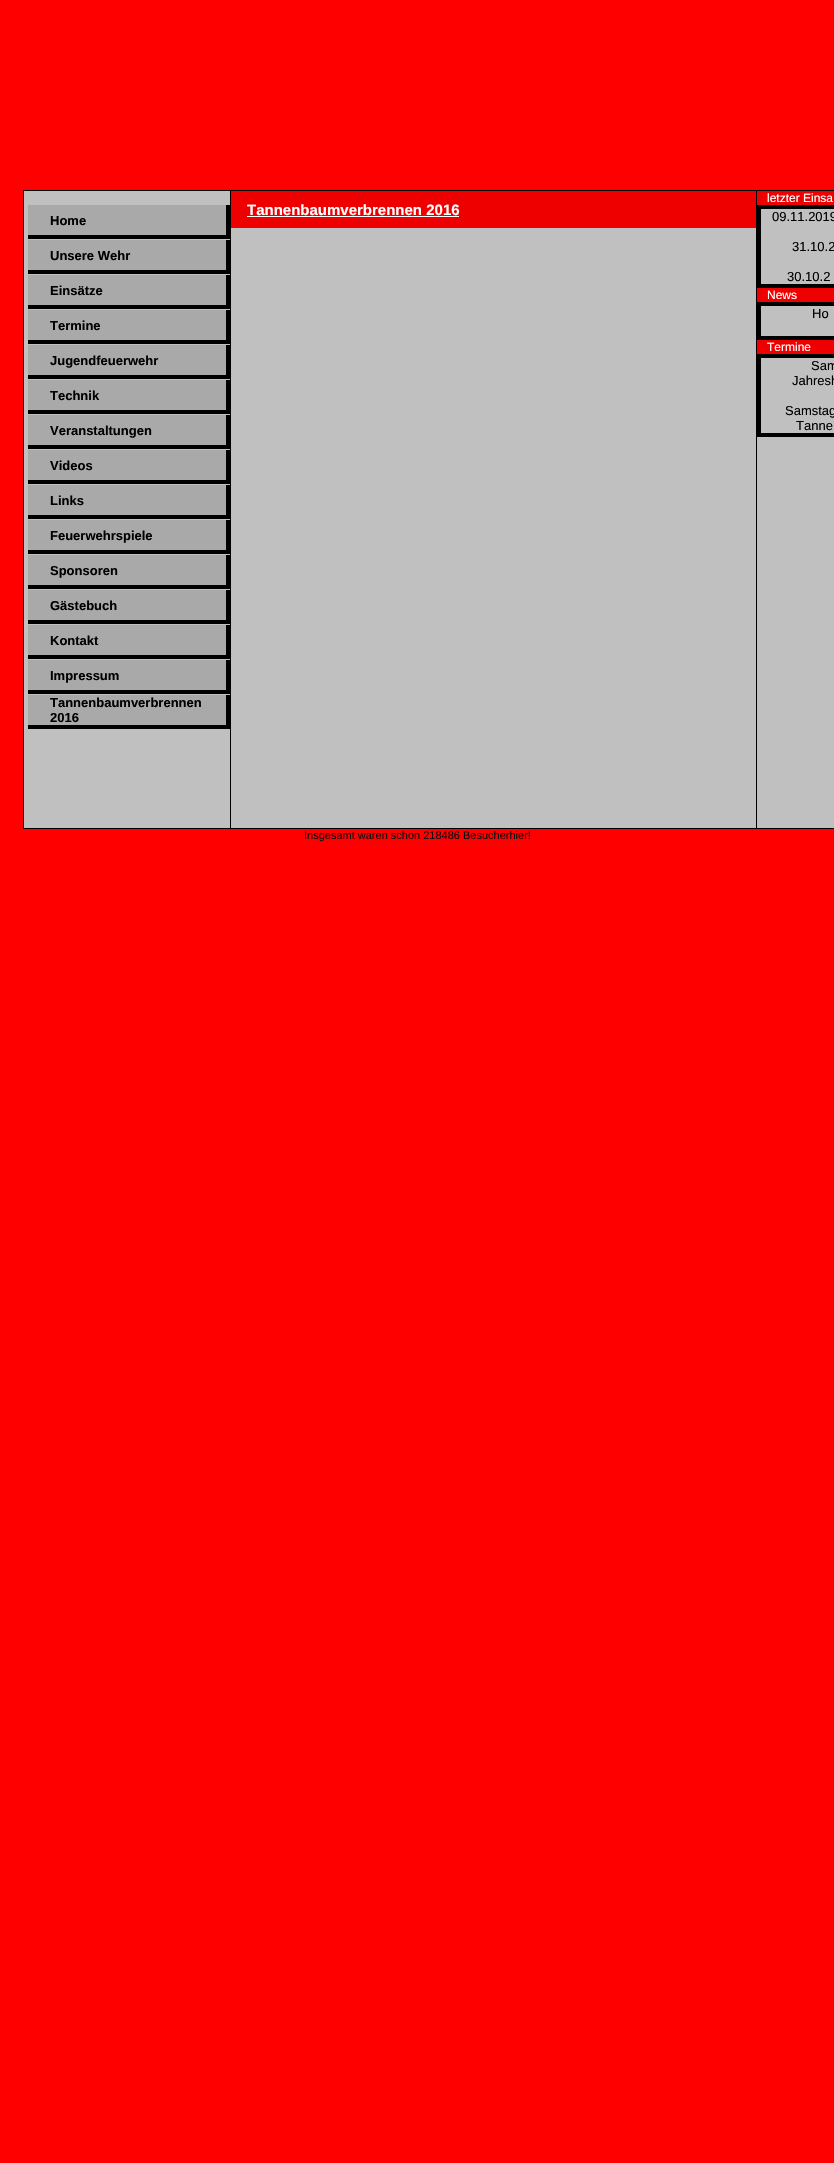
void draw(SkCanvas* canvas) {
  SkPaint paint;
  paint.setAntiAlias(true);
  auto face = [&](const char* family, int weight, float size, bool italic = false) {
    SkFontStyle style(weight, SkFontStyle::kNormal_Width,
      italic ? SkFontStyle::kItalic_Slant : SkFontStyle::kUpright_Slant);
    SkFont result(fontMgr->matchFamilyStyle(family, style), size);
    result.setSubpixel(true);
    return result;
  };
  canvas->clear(0xffff0000);
  {
    const struct { float x, y, w, h; SkColor color; } items[] = {
      {231, 191, 525, 37, 0xffee0000},
      {231, 190, 525, 1, 0xff000000},
      {247, 216, 212, 1, 0xffffffff},
      {231, 228, 525, 600, 0xffc0c0c0},
      {231, 828, 525, 1, 0xff000000},
      {757, 437, 77, 391, 0xffc0c0c0},
    };
    for (auto [x, y, w, h, color] : items) {
      paint.setColor(color);
      canvas->drawRect(SkRect::MakeXYWH(x, y, w, h), paint);
    }
  }
  paint.setStroke(true);
  paint.setStrokeWidth(1);
  paint.setColor(0xff000000);
  canvas->drawRect(SkRect::MakeXYWH(756.5f, 190.5f, 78, 638), paint);
  paint.setStroke(false);
  paint.setColor(0xffee0000);
  canvas->drawRect(SkRect::MakeXYWH(757, 191, 77, 14), paint);
  paint.setColor(0xffc0c0c0);
  canvas->drawRect(SkRect::MakeXYWH(759, 207, 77, 79), paint);
  paint.setStroke(true);
  paint.setStrokeWidth(4);
  paint.setColor(0xff000000);
  canvas->drawRect(SkRect::MakeXYWH(759, 207, 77, 79), paint);
  paint.setStroke(false);
  paint.setColor(0xffee0000);
  canvas->drawRect(SkRect::MakeXYWH(757, 288, 77, 14), paint);
  paint.setColor(0xffc0c0c0);
  canvas->drawRect(SkRect::MakeXYWH(759, 304, 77, 34), paint);
  paint.setStroke(true);
  paint.setColor(0xff000000);
  canvas->drawRect(SkRect::MakeXYWH(759, 304, 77, 34), paint);
  paint.setStroke(false);
  paint.setColor(0xffee0000);
  canvas->drawRect(SkRect::MakeXYWH(757, 340, 77, 14), paint);
  paint.setColor(0xffc0c0c0);
  canvas->drawRect(SkRect::MakeXYWH(759, 356, 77, 79), paint);
  paint.setStroke(true);
  paint.setColor(0xff000000);
  canvas->drawRect(SkRect::MakeXYWH(759, 356, 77, 79), paint);
  paint.setStroke(false);
  paint.setColor(0xffc0c0c0);
  canvas->drawRect(SkRect::MakeXYWH(23.5f, 190.5f, 207, 638), paint);
  paint.setStroke(true);
  paint.setStrokeWidth(1);
  paint.setColor(0xff000000);
  canvas->drawRect(SkRect::MakeXYWH(23.5f, 190.5f, 207, 638), paint);
  paint.setStroke(false);
  {
    const struct { float x, y, w, h; SkColor color; } items[] = {
      {28, 205, 198, 30, 0xffa9a9a9},
      {226, 205, 4, 34, 0xff000000},
      {28, 235, 202, 4, 0xff000000},
      {28, 240, 198, 30, 0xffa9a9a9},
      {226, 240, 4, 34, 0xff000000},
      {28, 270, 202, 4, 0xff000000},
      {28, 275, 198, 30, 0xffa9a9a9},
      {226, 275, 4, 34, 0xff000000},
      {28, 305, 202, 4, 0xff000000},
      {28, 310, 198, 30, 0xffa9a9a9},
      {226, 310, 4, 34, 0xff000000},
      {28, 340, 202, 4, 0xff000000},
      {28, 345, 198, 30, 0xffa9a9a9},
      {226, 345, 4, 34, 0xff000000},
      {28, 375, 202, 4, 0xff000000},
      {28, 380, 198, 30, 0xffa9a9a9},
      {226, 380, 4, 34, 0xff000000},
      {28, 410, 202, 4, 0xff000000},
      {28, 415, 198, 30, 0xffa9a9a9},
      {226, 415, 4, 34, 0xff000000},
      {28, 445, 202, 4, 0xff000000},
      {28, 450, 198, 30, 0xffa9a9a9},
      {226, 450, 4, 34, 0xff000000},
      {28, 480, 202, 4, 0xff000000},
      {28, 485, 198, 30, 0xffa9a9a9},
      {226, 485, 4, 34, 0xff000000},
      {28, 515, 202, 4, 0xff000000},
      {28, 520, 198, 30, 0xffa9a9a9},
      {226, 520, 4, 34, 0xff000000},
      {28, 550, 202, 4, 0xff000000},
      {28, 555, 198, 30, 0xffa9a9a9},
      {226, 555, 4, 34, 0xff000000},
      {28, 585, 202, 4, 0xff000000},
      {28, 590, 198, 30, 0xffa9a9a9},
      {226, 590, 4, 34, 0xff000000},
      {28, 620, 202, 4, 0xff000000},
      {28, 625, 198, 30, 0xffa9a9a9},
      {226, 625, 4, 34, 0xff000000},
      {28, 655, 202, 4, 0xff000000},
      {28, 660, 198, 30, 0xffa9a9a9},
      {226, 660, 4, 34, 0xff000000},
      {28, 690, 202, 4, 0xff000000},
      {28, 695, 198, 30, 0xffa9a9a9},
      {226, 695, 4, 34, 0xff000000},
      {28, 725, 202, 4, 0xff000000},
    };
    for (auto [x, y, w, h, color] : items) {
      paint.setColor(color);
      canvas->drawRect(SkRect::MakeXYWH(x, y, w, h), paint);
    }
  }
  auto f0 = face("Liberation Sans", 700, 15);
  paint.setColor(0xffffffff);
  canvas->drawString("Tannenbaumverbrennen 2016", 247, 215, f0, paint);
  auto f1 = face("Liberation Sans", 400, 12);
  canvas->drawString("letzter Einsa", 767, 202, f1, paint);
  auto f2 = face("Liberation Sans", 400, 13);
  paint.setColor(0xff000000);
  {
    const struct { const char* s; float x, y; } items[] = {
      {"09.11.2019", 772, 221},
      {"31.10.2", 792, 251},
      {"30.10.2", 787, 281},
    };
    for (auto [s, x, y] : items) {
      canvas->drawString(s, x, y, f2, paint);
    }
  }
  paint.setColor(0xffffffff);
  canvas->drawString("News", 767, 299, f1, paint);
  paint.setColor(0xff000000);
  canvas->drawString("Ho", 812, 318, f2, paint);
  paint.setColor(0xffffffff);
  canvas->drawString("Termine", 767, 351, f1, paint);
  paint.setColor(0xff000000);
  {
    const struct { const char* s; float x, y; } items[] = {
      {"Sam", 811, 370},
      {"Jahresh", 792, 385},
      {"Samstag", 785, 415},
      {"Tanne", 796, 430},
    };
    for (auto [s, x, y] : items) {
      canvas->drawString(s, x, y, f2, paint);
    }
  }
  auto f3 = face("Liberation Sans", 700, 13);
  {
    const struct { const char* s; float x, y; } items[] = {
      {"Home", 50, 225},
      {"Unsere Wehr", 50, 260},
      {"Einsätze", 50, 295},
      {"Termine", 50, 330},
      {"Jugendfeuerwehr", 50, 365},
      {"Technik", 50, 400},
      {"Veranstaltungen", 50, 435},
      {"Videos", 50, 470},
      {"Links", 50, 505},
      {"Feuerwehrspiele", 50, 540},
      {"Sponsoren", 50, 575},
      {"Gästebuch", 50, 610},
      {"Kontakt", 50, 645},
      {"Impressum", 50, 680},
      {"Tannenbaumverbrennen", 50, 707},
      {"2016", 50, 722},
    };
    for (auto [s, x, y] : items) {
      canvas->drawString(s, x, y, f3, paint);
    }
  }
  auto f4 = face("Liberation Sans", 400, 11);
  paint.setColor(0xff0e0d0d);
  canvas->drawString("Insgesamt waren schon 218486 Besucherhier!", 304, 839, f4, paint);
}
